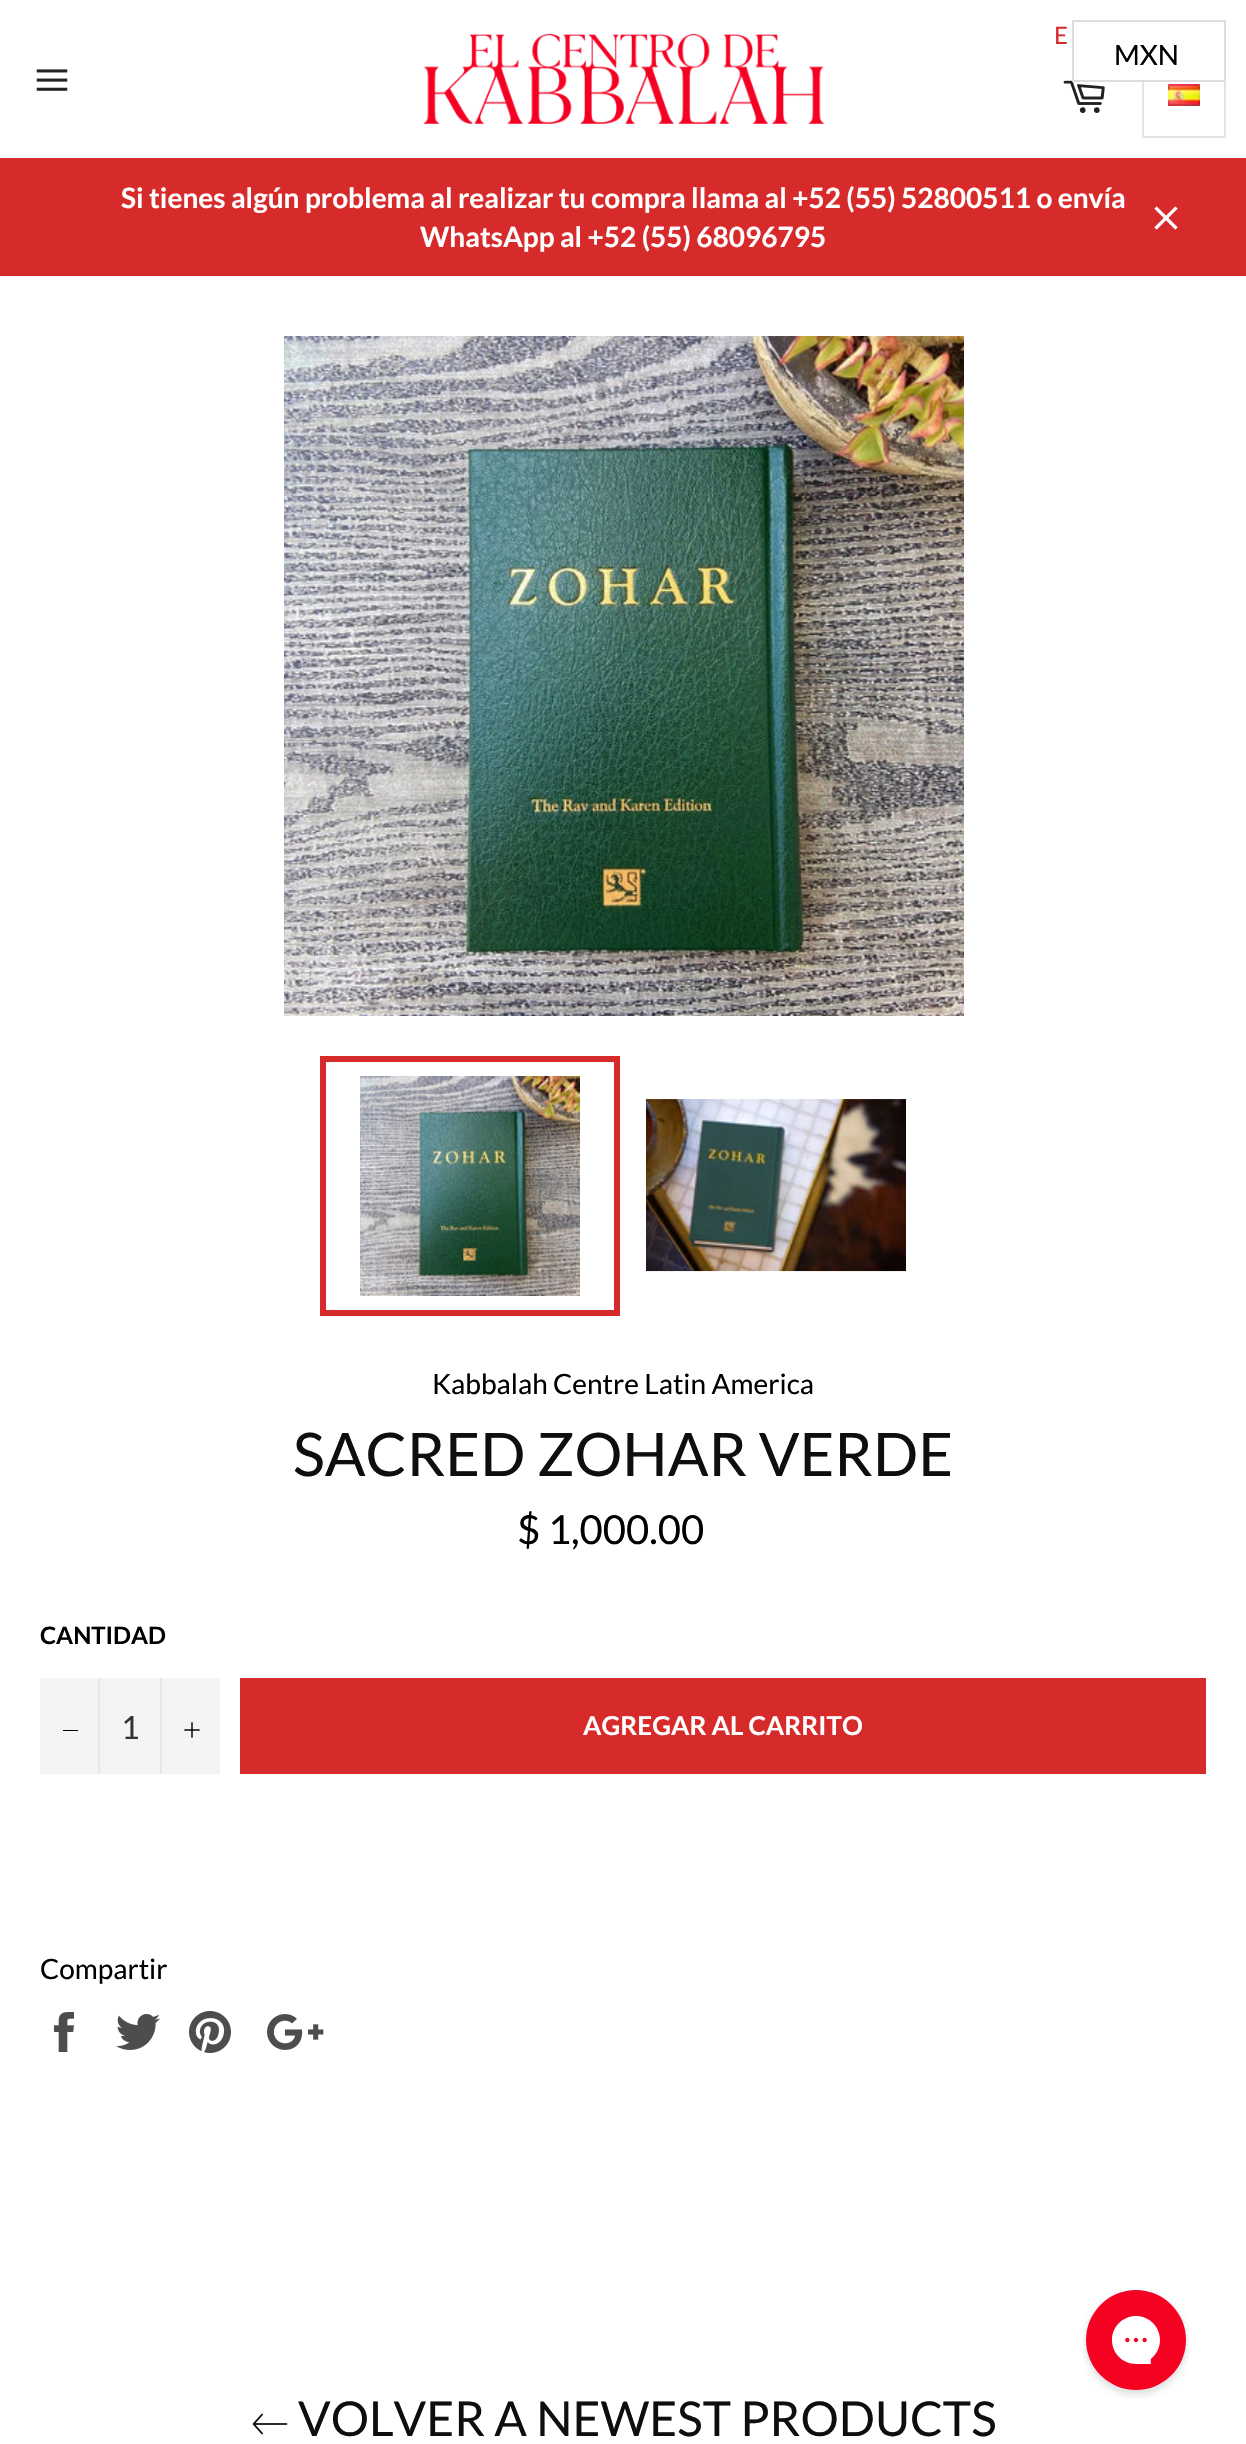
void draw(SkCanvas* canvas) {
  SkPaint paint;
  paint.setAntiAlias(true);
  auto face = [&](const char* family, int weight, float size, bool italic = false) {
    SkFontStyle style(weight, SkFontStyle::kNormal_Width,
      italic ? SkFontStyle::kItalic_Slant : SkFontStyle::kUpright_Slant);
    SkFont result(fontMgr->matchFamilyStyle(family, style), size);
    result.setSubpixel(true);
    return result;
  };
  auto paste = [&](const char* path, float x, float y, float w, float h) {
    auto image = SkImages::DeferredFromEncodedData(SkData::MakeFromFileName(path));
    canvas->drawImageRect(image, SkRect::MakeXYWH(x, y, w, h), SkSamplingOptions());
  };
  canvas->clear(0xffffffff);
  paste("img/1.png", 36, 69, 32, 22);
  paste("img/2.png", 424, 34, 400, 90);
  paste("img/3.png", 1063, 80, 42, 33);
  paint.setStroke(true);
  paint.setStrokeWidth(2);
  paint.setColor(0xffe4e4e4);
  canvas->drawRect(SkRect::MakeXYWH(1143, 55, 82, 82), paint);
  paste("img/4.png", 1168, 84, 32, 22);
  paint.setStroke(false);
  paint.setColor(0xffd72b2b);
  canvas->drawRect(SkRect::MakeXYWH(0, 158, 1246, 118), paint);
  paste("img/5.png", 1154, 206, 24, 24);
  paste("img/6.png", 284, 336, 680, 680);
  paste("img/7.png", 360, 1076, 220, 220);
  paint.setStroke(true);
  paint.setStrokeWidth(6);
  canvas->drawRect(SkRect::MakeXYWH(323, 1059, 294, 254), paint);
  paste("img/8.png", 646, 1099, 260, 173);
  paint.setStroke(false);
  {
    const struct { float x, y, w, h; SkColor color; } items[] = {
      {40, 1678, 180, 96, 0xfff4f4f4},
      {98, 1678, 2, 96, 0xffe7e7e7},
      {63, 1730, 15, 1, 0xff000000},
      {160, 1678, 2, 96, 0xffe7e7e7},
    };
    for (auto [x, y, w, h, color] : items) {
      paint.setColor(color);
      canvas->drawRect(SkRect::MakeXYWH(x, y, w, h), paint);
    }
  }
  paste("img/9.png", 184, 1722, 16, 16);
  paint.setColor(0xffd72b2b);
  canvas->drawRect(SkRect::MakeXYWH(240, 1678, 966, 96), paint);
  paste("img/10.png", 54, 2012, 20, 40);
  paste("img/11.png", 116, 2014, 44, 36);
  paste("img/12.png", 189, 2011, 42, 42);
  paste("img/13.png", 267, 2014, 57, 36);
  paste("img/14.png", 252, 2413, 36, 22);
  paint.setColor(0xffffffff);
  canvas->drawRect(SkRect::MakeXYWH(1142, 54, 82, 26), paint);
  paint.setStroke(true);
  paint.setStrokeWidth(2);
  paint.setColor(0xffdddddd);
  canvas->drawRect(SkRect::MakeXYWH(1073, 21, 152, 60), paint);
  paste("img/15.png", 1082, 2290, 108, 108);
  auto f0 = face("Lato", 400, 24);
  paint.setStroke(false);
  paint.setColor(0xffd72b2b);
  canvas->drawString("E", 1054, 44, f0, paint);
  auto f1 = face("Lato", 700, 28);
  paint.setColor(0xffffffff);
  canvas->drawString("Si tienes algún problema al realizar tu compra llama al +52 (55) 52800511 o envía", 121, 208, f1, paint);
  canvas->drawString("WhatsApp al +52 (55) 68096795", 420, 247, f1, paint);
  auto f2 = face("Lato", 400, 28);
  paint.setColor(0xff000000);
  canvas->drawString("Kabbalah Centre Latin America", 432, 1394, f2, paint);
  auto f3 = face("Lato", 400, 60);
  paint.setColor(0xff0e0e0e);
  canvas->drawString("SACRED ZOHAR VERDE", 293, 1476, f3, paint);
  auto f4 = face("Lato", 400, 40);
  paint.setColor(0xff000000);
  canvas->drawString("$ 1,000.00", 517, 1544, f4, paint);
  auto f5 = face("Lato", 700, 24);
  canvas->drawString("CANTIDAD", 40, 1644, f5, paint);
  auto f6 = face("Lato", 400, 32);
  paint.setColor(0xff333333);
  canvas->drawString("1", 121, 1739, f6, paint);
  auto f7 = face("Lato", 700, 26);
  paint.setColor(0xffffffff);
  canvas->drawString("AGREGAR AL CARRITO", 583, 1735, f7, paint);
  paint.setColor(0xff000000);
  canvas->drawString("Compartir", 40, 1979, f2, paint);
  auto f8 = face("Lato", 400, 48);
  paint.setColor(0xff0e0e0e);
  canvas->drawString("VOLVER A NEWEST PRODUCTS", 298, 2436, f8, paint);
  paint.setColor(0xff000000);
  canvas->drawString("MXN", 1114, 65, f2, paint);
}
